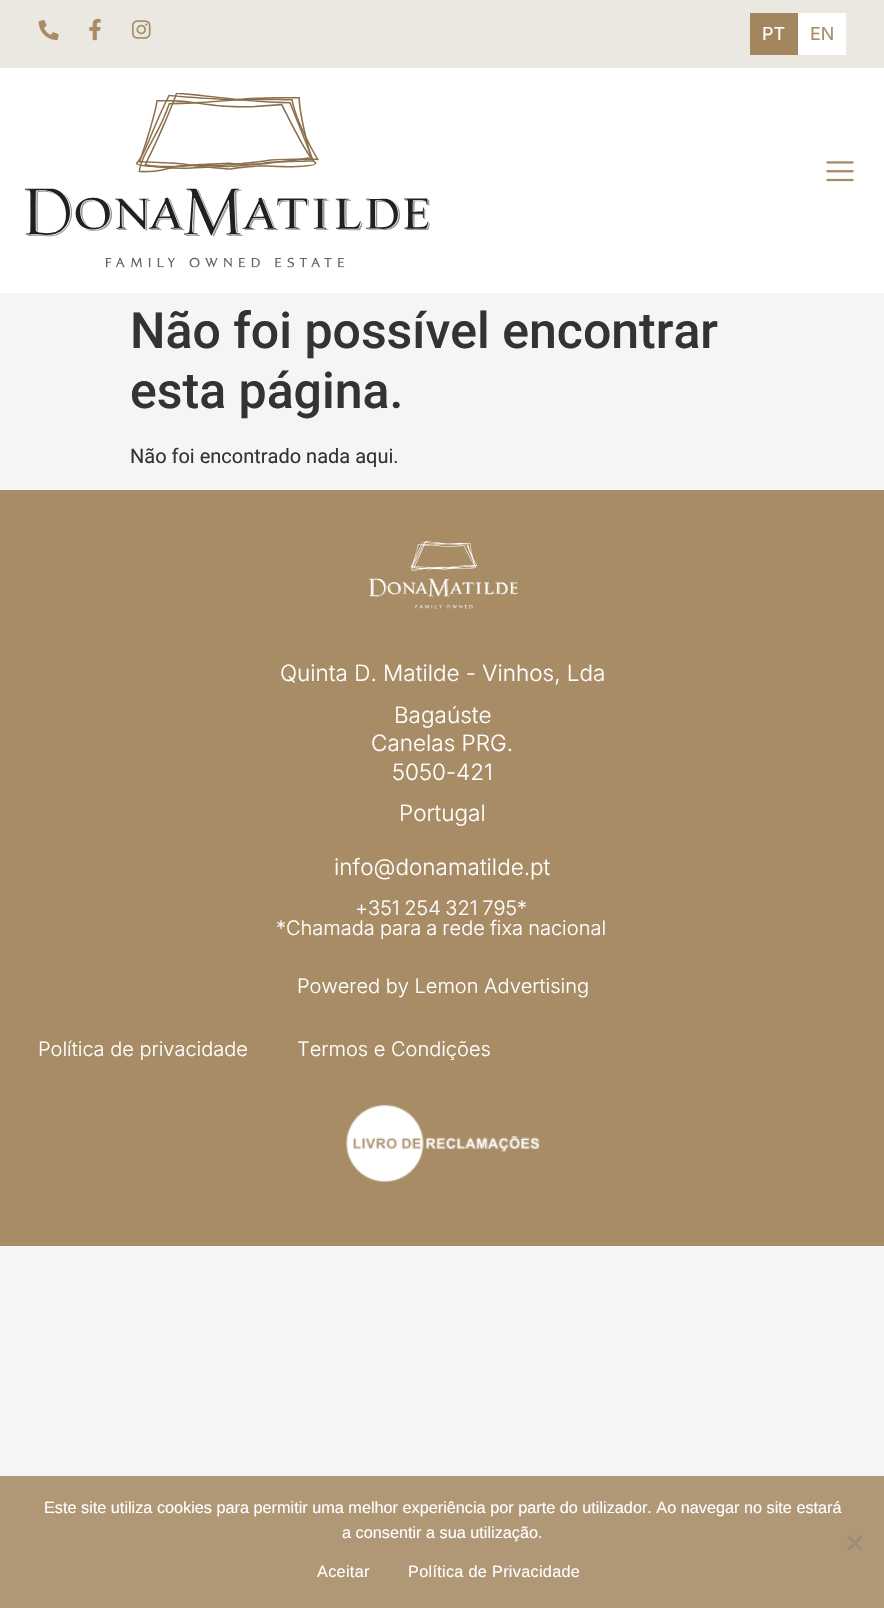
void draw(SkCanvas* canvas) {
  SkPaint paint;
  paint.setAntiAlias(true);
  auto face = [&](const char* family, int weight, float size, bool italic = false) {
    SkFontStyle style(weight, SkFontStyle::kNormal_Width,
      italic ? SkFontStyle::kItalic_Slant : SkFontStyle::kUpright_Slant);
    SkFont result(fontMgr->matchFamilyStyle(family, style), size);
    result.setSubpixel(true);
    return result;
  };
  auto writeSpaced = [&](const char* s, float x, float y, const SkFont& font, const SkPaint& ink, float letter, float word) {
    std::vector<SkGlyphID> glyphs(font.countText(s, strlen(s), SkTextEncoding::kUTF8));
    std::vector<float> xs(glyphs.size());
    font.textToGlyphs(s, strlen(s), SkTextEncoding::kUTF8, glyphs);
    font.getXPos(glyphs, xs, x);
    float extra = 0;
    for (size_t i = 0; i < glyphs.size(); i++) {
      xs[i] += extra;
      extra += letter + word * (glyphs[i] == font.unicharToGlyph(' '));
    }
    canvas->drawTextBlob(SkTextBlob::MakeFromPosHGlyphs(glyphs, xs, y, font), 0, 0, ink);
  };
  auto paste = [&](const char* path, float x, float y, float w, float h) {
    auto image = SkImages::DeferredFromEncodedData(SkData::MakeFromFileName(path));
    canvas->drawImageRect(image, SkRect::MakeXYWH(x, y, w, h), SkSamplingOptions());
  };
  auto shape = [&](const char* data, bool evenOdd = false) {
    SkPath result = *SkParsePath::FromSVGString(data);
    if (evenOdd) result.setFillType(SkPathFillType::kEvenOdd);
    return result;
  };
  canvas->clear(0xfff5f5f5);
  paint.setColor(0xffebe7e1);
  canvas->drawRect(SkRect::MakeXYWH(0, 0, 884, 68), paint);
  paste("img/1.png", 38, 20, 21, 20);
  paste("img/2.png", 89, 18, 12, 23);
  paste("img/3.png", 131, 20, 20, 19);
  {
    const struct { float x, y, w, h; SkColor color; } items[] = {
      {750, 13, 48, 42, 0xffa4865e},
      {798, 13, 48, 42, 0xffffffff},
      {0, 68, 884, 225, 0xffffffff},
    };
    for (auto [x, y, w, h, color] : items) {
      paint.setColor(color);
      canvas->drawRect(SkRect::MakeXYWH(x, y, w, h), paint);
    }
  }
  paste("img/4.png", 25, 93, 405, 175);
  paste("img/5.png", 826, 161, 28, 21);
  paint.setColor(0xffa88c66);
  canvas->drawRect(SkRect::MakeXYWH(0, 490, 884, 756), paint);
  paste("img/6.png", 369, 541, 149, 68);
  paste("img/7.png", 346, 1104, 194, 79);
  paint.setColor(0xffb09776);
  canvas->drawRect(SkRect::MakeXYWH(0, 1476, 884, 132), paint);
  paint.setColor(0xff988c7b);
  canvas->drawPath(shape("M860.5 1535.5L862.5 1537.5L849.5 1550.5L847.5 1549Z"), paint);
  canvas->drawPath(shape("M847.5 1537.5L849.5 1535.5L862.5 1549L860.5 1550.5Z"), paint);
  auto f0 = face("Inter", 400, 18);
  paint.setColor(0xffffffff);
  canvas->drawString("PT", 762, 40, f0, paint);
  paint.setColor(0xffa88c66);
  canvas->drawString("EN", 810, 40, f0, paint);
  auto f1 = face("Roboto", 500, 50);
  paint.setColor(0xff333333);
  canvas->drawString("Não foi possível encontrar", 130, 348, f1, paint);
  canvas->drawString("esta página.", 130, 408, f1, paint);
  auto f2 = face("Roboto", 400, 20);
  canvas->drawString("Não foi encontrado nada aqui.", 130, 463, f2, paint);
  auto f3 = face("Inter", 300, 22.5f);
  paint.setColor(0xffffffff);
  {
    const struct { const char* s; float x, y; } items[] = {
      {"Quinta D. Matilde - Vinhos, Lda", 280, 681},
      {"Bagaúste", 394, 723},
      {"Canelas PRG.", 371, 751},
      {"5050-421", 392, 780},
      {"Portugal", 399, 821},
      {"info@donamatilde.pt", 334, 875},
    };
    for (auto [s, x, y] : items) {
      canvas->drawString(s, x, y, f3, paint);
    }
  }
  auto f4 = face("Inter", 300, 20);
  writeSpaced("+351 254 321 795*", 355, 915, f4, paint, 0, -1);
  writeSpaced("*Chamada para a rede fixa nacional", 276, 935, f4, paint, 0, -0.5f);
  {
    const struct { const char* s; float x, y; } items[] = {
      {"Powered by Lemon Advertising", 297, 993},
      {"Política de privacidade", 38, 1056},
      {"Termos e Condições", 297, 1056},
    };
    for (auto [s, x, y] : items) {
      canvas->drawString(s, x, y, f4, paint);
    }
  }
  auto f5 = face("Liberation Sans", 400, 16.25f);
  canvas->drawString("Este site utiliza cookies para permitir uma melhor experiência por parte do utilizador. Ao navegar no site estará", 44, 1513, f5, paint);
  canvas->drawString("a consentir a sua utilização.", 342, 1538, f5, paint);
  writeSpaced("Aceitar", 317, 1577, f5, paint, 0.3f, 0);
  writeSpaced("Política de Privacidade", 408, 1577, f5, paint, 0.3f, 0);
}
